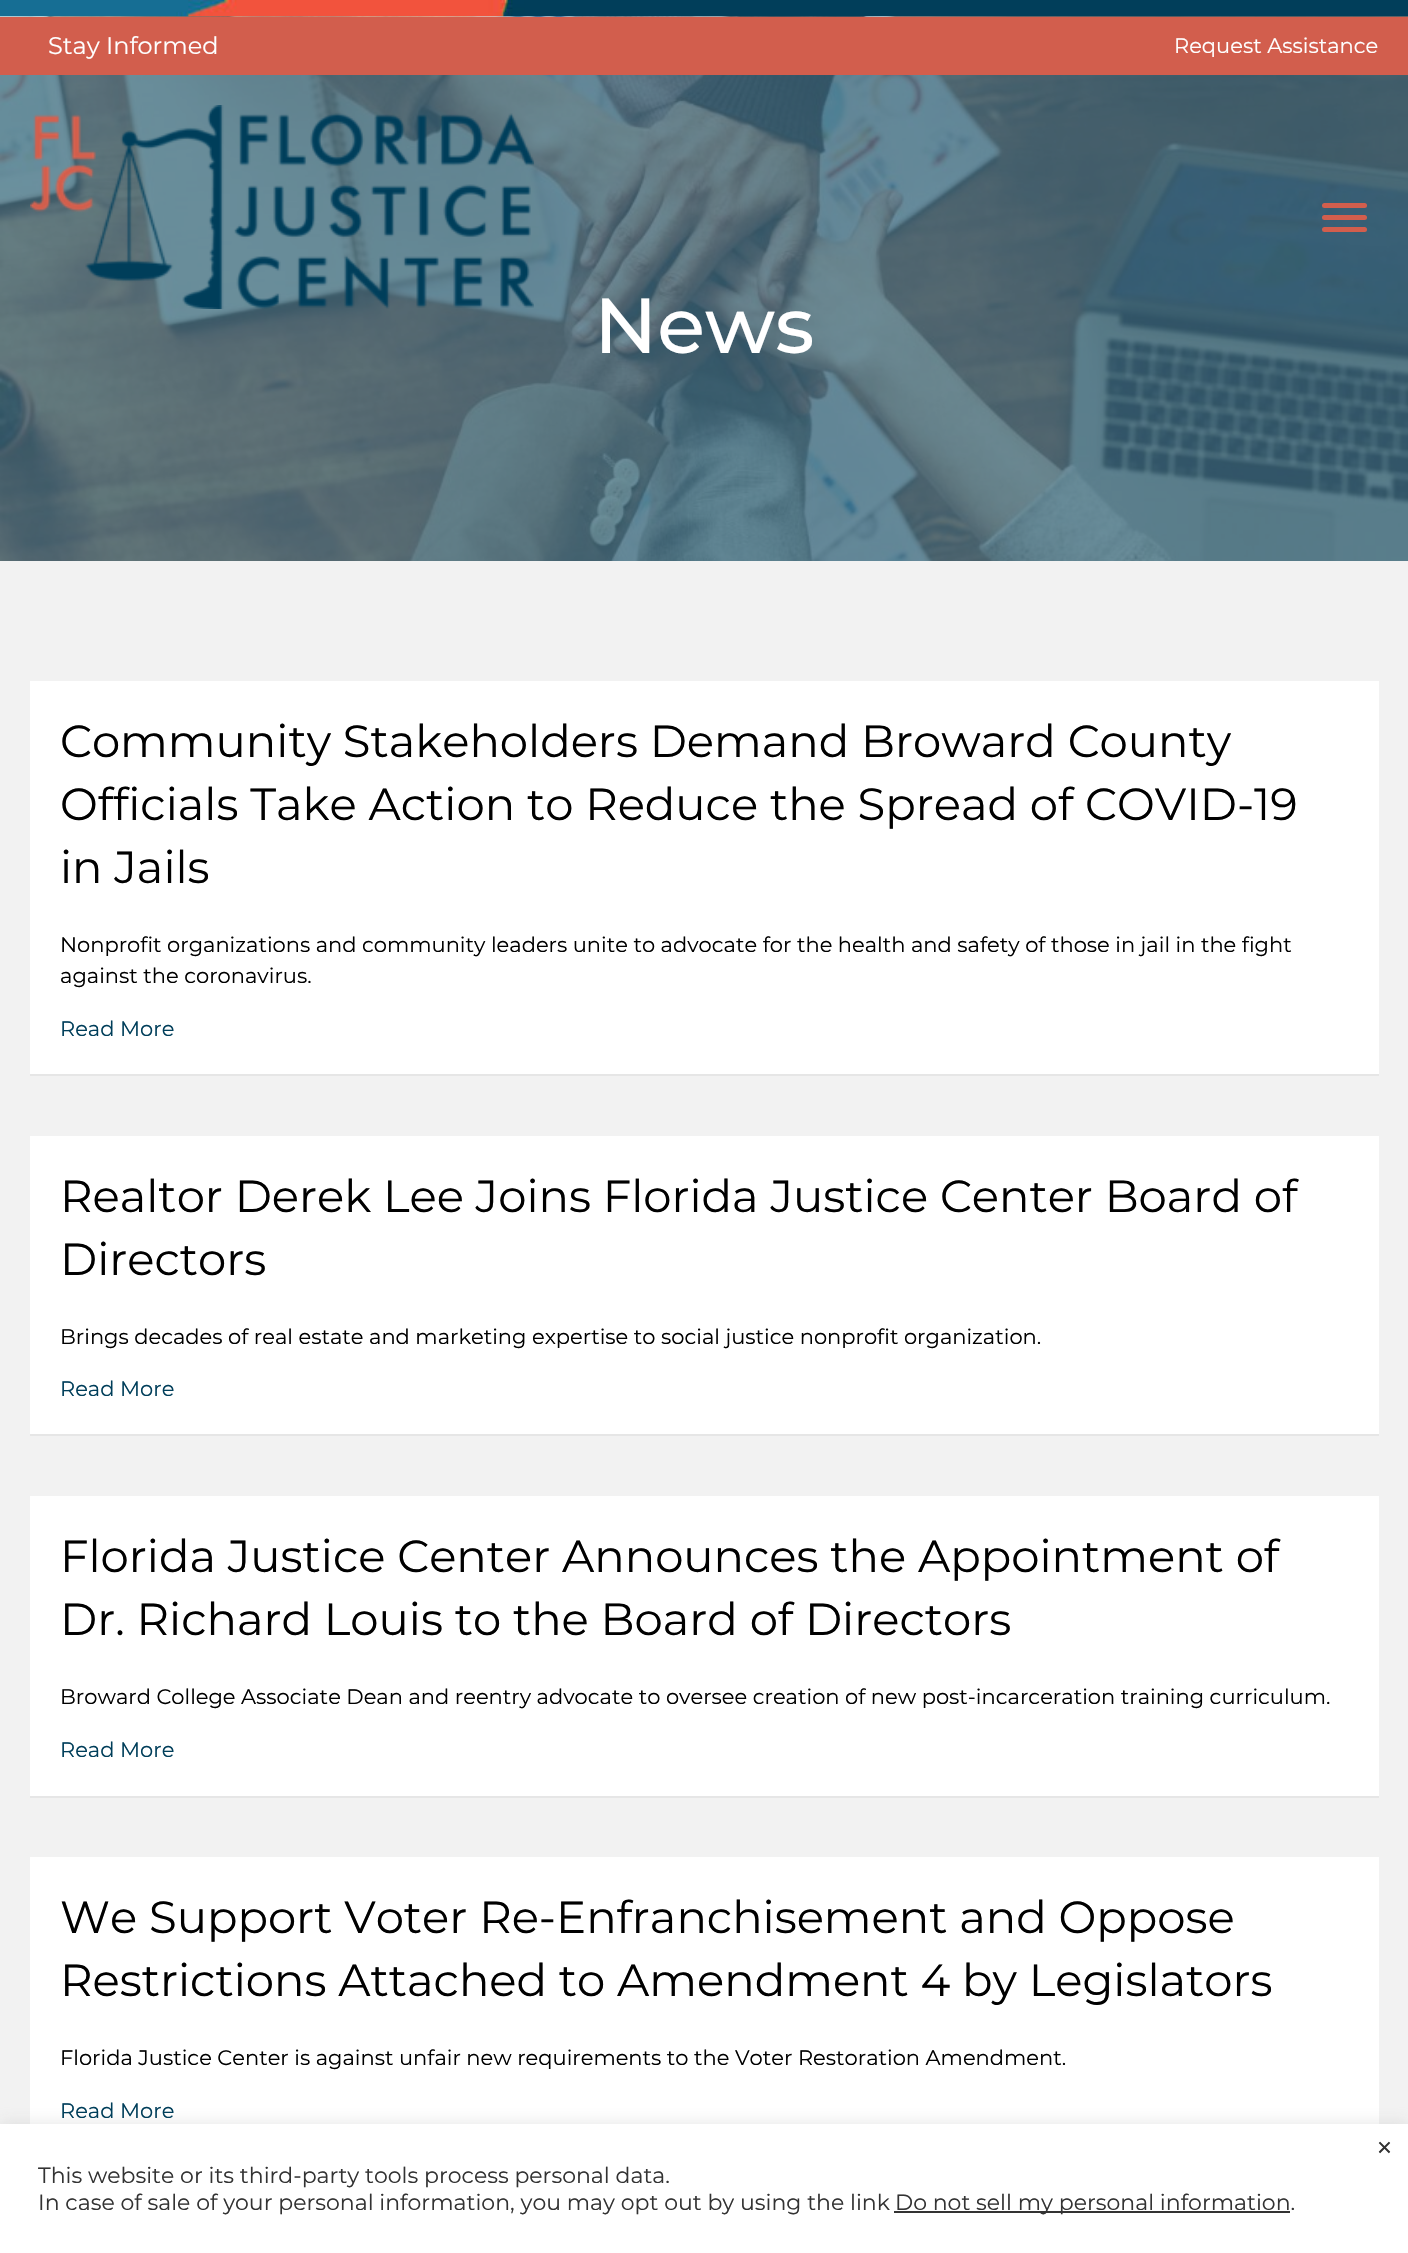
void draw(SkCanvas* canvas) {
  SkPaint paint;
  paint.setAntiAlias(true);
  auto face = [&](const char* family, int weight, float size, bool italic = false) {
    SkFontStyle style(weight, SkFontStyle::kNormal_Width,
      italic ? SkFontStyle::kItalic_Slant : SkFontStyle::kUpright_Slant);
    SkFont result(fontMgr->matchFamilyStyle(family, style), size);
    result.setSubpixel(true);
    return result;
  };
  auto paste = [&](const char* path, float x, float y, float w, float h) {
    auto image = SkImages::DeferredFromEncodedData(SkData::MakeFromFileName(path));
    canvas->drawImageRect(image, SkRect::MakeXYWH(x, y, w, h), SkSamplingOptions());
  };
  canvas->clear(0xffffffff);
  paste("img/1.png", 0, 0, 1408, 17);
  paste("img/3.png", 0, 16, 1408, 545);
  paint.setColor(0xffd25e4d);
  canvas->drawRect(SkRect::MakeXYWH(0, 17, 1408, 58), paint);
  paste("img/2.png", 30, 105, 504, 204);
  canvas->drawRoundRect(SkRect::MakeXYWH(1322, 215, 45, 5), 2.5f, 2.5f, paint);
  canvas->drawRoundRect(SkRect::MakeXYWH(1322, 203, 45, 5), 2.5f, 2.5f, paint);
  canvas->drawRoundRect(SkRect::MakeXYWH(1322, 227, 45, 5), 2.5f, 2.5f, paint);
  {
    const struct { float x, y, w, h; SkColor color; } items[] = {
      {0, 561, 1408, 1563, 0xfff2f2f2},
      {30, 681, 1349, 393, 0xffffffff},
      {30, 1074, 1349, 2, 0xffe6e6e6},
      {30, 1136, 1349, 298, 0xffffffff},
      {30, 1434, 1349, 2, 0xffe6e6e6},
      {30, 1496, 1349, 300, 0xffffffff},
      {30, 1796, 1349, 2, 0xffe6e6e6},
      {30, 1857, 1349, 267, 0xffffffff},
    };
    for (auto [x, y, w, h, color] : items) {
      paint.setColor(color);
      canvas->drawRect(SkRect::MakeXYWH(x, y, w, h), paint);
    }
  }
  paint.setColor(0x4dacabab);
  paint.setMaskFilter(SkMaskFilter::MakeBlur(kNormal_SkBlurStyle, 7.5f));
  canvas->drawRect(SkRect::MakeXYWH(0, 2123, 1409, 129), paint);
  paint.setMaskFilter(nullptr);
  paint.setColor(0xffffffff);
  canvas->drawRect(SkRect::MakeXYWH(0, 2124, 1408, 129), paint);
  paint.setColor(0xff333333);
  canvas->drawRect(SkRect::MakeXYWH(894, 2211, 396, 2), paint);
  auto f0 = face("Montserrat", 400, 24);
  paint.setColor(0xffffffff);
  canvas->drawString("Stay Informed", 48, 54, f0, paint);
  auto f1 = face("Montserrat", 400, 21);
  canvas->drawString("Request Assistance", 1174, 53, f1, paint);
  auto f2 = face("Montserrat", 500, 78);
  canvas->drawString("News", 594, 353, f2, paint);
  auto f3 = face("Montserrat", 400, 45);
  paint.setColor(0xff000000);
  {
    const struct { const char* s; float x, y; } items[] = {
      {"Community Stakeholders Demand Broward County", 60, 757},
      {"Officials Take Action to Reduce the Spread of COVID-19", 60, 820},
      {"in Jails", 60, 883},
    };
    for (auto [s, x, y] : items) {
      canvas->drawString(s, x, y, f3, paint);
    }
  }
  canvas->drawString("Nonprofit organizations and community leaders unite to advocate for the health and safety of those in jail in the fight", 60, 952, f1, paint);
  canvas->drawString("against the coronavirus.", 60, 983, f1, paint);
  paint.setColor(0xff003e5a);
  canvas->drawString("Read More", 60, 1036, f1, paint);
  paint.setColor(0xff000000);
  canvas->drawString("Realtor Derek Lee Joins Florida Justice Center Board of", 60, 1212, f3, paint);
  canvas->drawString("Directors", 60, 1275, f3, paint);
  canvas->drawString("Brings decades of real estate and marketing expertise to social justice nonprofit organization.", 60, 1344, f1, paint);
  paint.setColor(0xff003e5a);
  canvas->drawString("Read More", 60, 1396, f1, paint);
  paint.setColor(0xff000000);
  canvas->drawString("Florida Justice Center Announces the Appointment of", 60, 1572, f3, paint);
  canvas->drawString("Dr. Richard Louis to the Board of Directors", 60, 1635, f3, paint);
  canvas->drawString("Broward College Associate Dean and reentry advocate to oversee creation of new post-incarceration training curriculum.", 60, 1704, f1, paint);
  paint.setColor(0xff003e5a);
  canvas->drawString("Read More", 60, 1757, f1, paint);
  paint.setColor(0xff000000);
  canvas->drawString("We Support Voter Re-Enfranchisement and Oppose", 60, 1933, f3, paint);
  canvas->drawString("Restrictions Attached to Amendment 4 by Legislators", 60, 1996, f3, paint);
  canvas->drawString("Florida Justice Center is against unfair new requirements to the Voter Restoration Amendment.", 60, 2065, f1, paint);
  paint.setColor(0xff003e5a);
  canvas->drawString("Read More", 60, 2118, f1, paint);
  auto f4 = face("Montserrat", 400, 33);
  paint.setColor(0xff333333);
  canvas->drawString("×", 1375, 2159, f4, paint);
  auto f5 = face("Montserrat", 400, 22);
  {
    const struct { const char* s; float x, y; } items[] = {
      {"This website or its third-party tools process personal data.", 38, 2183},
      {"In case of sale of your personal information, you may opt out by using the link", 38, 2210},
      {"Do not sell my personal information.", 895, 2210},
    };
    for (auto [s, x, y] : items) {
      canvas->drawString(s, x, y, f5, paint);
    }
  }
}
